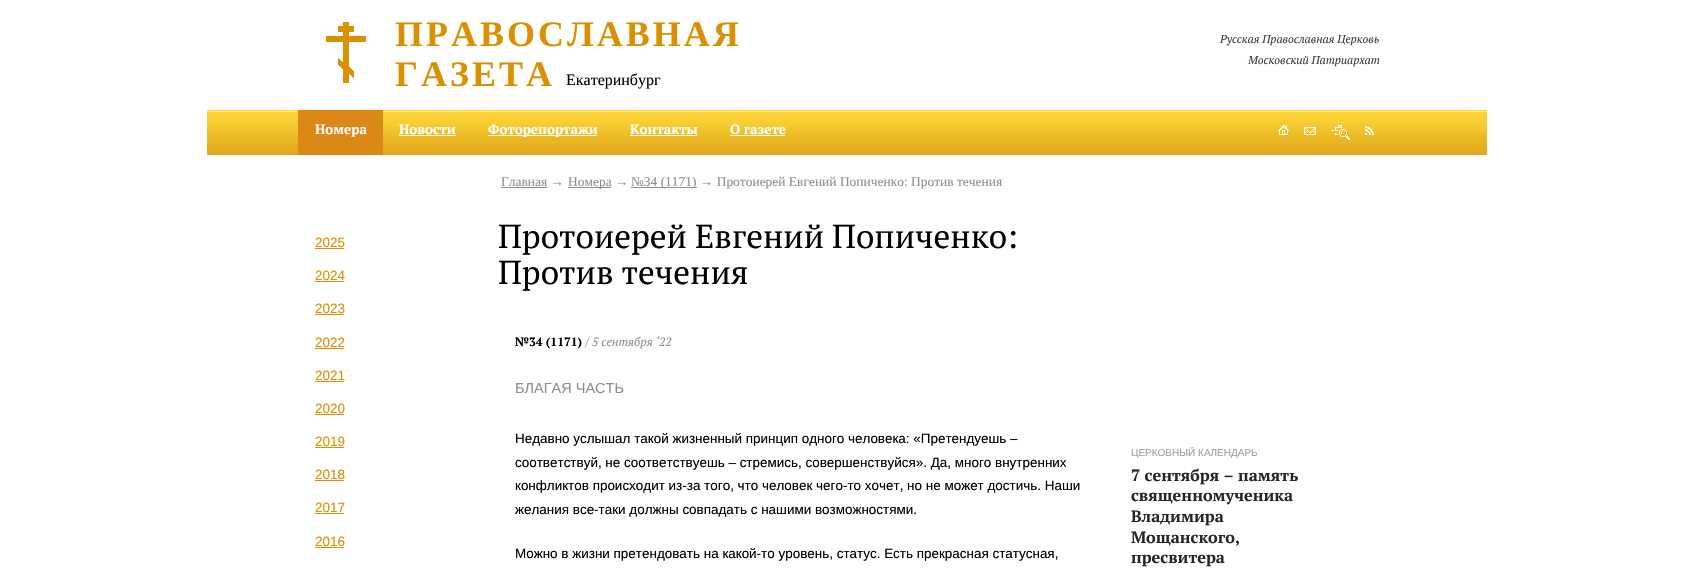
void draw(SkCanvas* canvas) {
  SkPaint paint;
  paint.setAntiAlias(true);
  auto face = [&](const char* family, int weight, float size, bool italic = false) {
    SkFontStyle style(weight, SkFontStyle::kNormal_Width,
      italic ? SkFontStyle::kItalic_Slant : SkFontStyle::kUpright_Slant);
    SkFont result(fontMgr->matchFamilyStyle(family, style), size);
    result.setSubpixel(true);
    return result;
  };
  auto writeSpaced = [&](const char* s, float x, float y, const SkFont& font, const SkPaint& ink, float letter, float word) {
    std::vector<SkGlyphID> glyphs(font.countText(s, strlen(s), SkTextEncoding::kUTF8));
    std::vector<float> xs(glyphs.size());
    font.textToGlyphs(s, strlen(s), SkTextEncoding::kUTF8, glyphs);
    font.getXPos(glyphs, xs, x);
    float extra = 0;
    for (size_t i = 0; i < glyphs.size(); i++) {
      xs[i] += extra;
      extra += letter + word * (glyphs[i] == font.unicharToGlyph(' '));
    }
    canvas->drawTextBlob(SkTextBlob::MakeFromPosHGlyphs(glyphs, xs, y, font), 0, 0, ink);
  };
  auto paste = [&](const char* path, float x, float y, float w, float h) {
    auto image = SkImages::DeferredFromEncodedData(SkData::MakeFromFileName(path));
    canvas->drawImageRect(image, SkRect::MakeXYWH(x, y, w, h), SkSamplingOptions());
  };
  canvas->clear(0xffffffff);
  paste("img/1.png", 326, 22, 40, 61);
  paint.setColor(0xffe0a51b);
  canvas->drawRect(SkRect::MakeXYWH(207, 153, 1280, 2), paint);
  paste("img/2.png", 207, 110, 1280, 43);
  {
    const struct { float x, y, w, h; SkColor color; } items[] = {
      {298, 110, 85, 45, 0xffdc8816},
      {399, 135, 57, 1, 0xffffffff},
      {488, 135, 109, 1, 0xffffffff},
      {630, 135, 67, 1, 0xffffffff},
      {730, 135, 55, 1, 0xffffffff},
    };
    for (auto [x, y, w, h, color] : items) {
      paint.setColor(color);
      canvas->drawRect(SkRect::MakeXYWH(x, y, w, h), paint);
    }
  }
  paste("img/3.png", 1278, 125, 11, 10);
  paste("img/4.png", 1304, 127, 12, 8);
  paste("img/5.png", 1331, 125, 19, 15);
  paste("img/6.png", 1365, 126, 9, 9);
  {
    const struct { float x, y, w, h; SkColor color; } items[] = {
      {315, 248, 29, 1, 0xffda9000},
      {315, 281, 29, 1, 0xffda9000},
      {315, 314, 29, 1, 0xffda9000},
      {315, 348, 29, 1, 0xffda9000},
      {315, 381, 29, 1, 0xffda9000},
      {315, 414, 29, 1, 0xffda9000},
      {315, 447, 29, 1, 0xffda9000},
      {315, 480, 29, 1, 0xffda9000},
      {315, 513, 29, 1, 0xffda9000},
      {315, 547, 29, 1, 0xffda9000},
      {501, 187, 46, 1, 0xff8f8f8f},
      {568, 187, 43, 1, 0xff8f8f8f},
      {631, 187, 66, 1, 0xff8f8f8f},
    };
    for (auto [x, y, w, h, color] : items) {
      paint.setColor(color);
      canvas->drawRect(SkRect::MakeXYWH(x, y, w, h), paint);
    }
  }
  auto f0 = face("Liberation Serif", 700, 36);
  paint.setColor(0xffda9000);
  writeSpaced("ПРАВОСЛАВНАЯ", 395, 46, f0, paint, 3, 0);
  writeSpaced("ГАЗЕТА", 395, 86, f0, paint, 3, 0);
  auto f1 = face("Liberation Serif", 400, 16);
  paint.setColor(0xff000000);
  canvas->drawString("Екатеринбург", 566, 85, f1, paint);
  auto f2 = face("PT Serif", 400, 11.4f, true);
  paint.setColor(0xff3f3f3f);
  canvas->drawString("Русская Православная Церковь", 1220, 43, f2, paint);
  canvas->drawString("Московский Патриархат", 1248, 64, f2, paint);
  auto f3 = face("PT Serif", 700, 13.45f);
  paint.setColor(0xffffffff);
  {
    const struct { const char* s; float x, y; } items[] = {
      {"Номера", 315, 134},
      {"Новости", 399, 134},
      {"Фоторепортажи", 488, 134},
      {"Контакты", 630, 134},
      {"О газете", 730, 134},
    };
    for (auto [s, x, y] : items) {
      canvas->drawString(s, x, y, f3, paint);
    }
  }
  auto f4 = face("Liberation Sans", 400, 13.45f);
  paint.setColor(0xffda9000);
  {
    const struct { const char* s; float x, y; } items[] = {
      {"2025", 315, 247},
      {"2024", 315, 280},
      {"2023", 315, 313},
      {"2022", 315, 347},
      {"2021", 315, 380},
      {"2020", 315, 413},
      {"2019", 315, 446},
      {"2018", 315, 479},
      {"2017", 315, 512},
      {"2016", 315, 546},
    };
    for (auto [s, x, y] : items) {
      canvas->drawString(s, x, y, f4, paint);
    }
  }
  auto f5 = face("Liberation Serif", 400, 13.45f);
  paint.setColor(0xff8f8f8f);
  {
    const struct { const char* s; float x, y; } items[] = {
      {"Главная →", 501, 186},
      {"Номера →", 568, 186},
      {"№34 (1171) → Протоиерей Евгений Попиченко: Против течения", 631, 186},
    };
    for (auto [s, x, y] : items) {
      canvas->drawString(s, x, y, f5, paint);
    }
  }
  auto f6 = face("PT Serif", 400, 33.25f);
  paint.setColor(0xff000000);
  canvas->drawString("Протоиерей Евгений Попиченко:", 498, 248, f6, paint);
  canvas->drawString("Против течения", 498, 284, f6, paint);
  auto f7 = face("PT Serif", 700, 12);
  canvas->drawString("№34 (1171)", 515, 346, f7, paint);
  auto f8 = face("PT Serif", 400, 12, true);
  paint.setColor(0xff8f8f8f);
  canvas->drawString("/ 5 сентября ‘22", 585, 346, f8, paint);
  auto f9 = face("Liberation Sans", 400, 14.5f);
  canvas->drawString("БЛАГАЯ ЧАСТЬ", 515, 393, f9, paint);
  paint.setColor(0xff000000);
  {
    const struct { const char* s; float x, y; } items[] = {
      {"Недавно услышал такой жизненный принцип одного человека: «Претендуешь –", 515, 443},
      {"соответствуй, не соответствуешь – стремись, совершенствуйся». Да, много внутренних", 515, 467},
      {"конфликтов происходит из-за того, что человек чего-то хочет, но не может достичь. Наши", 515, 490},
      {"желания все-таки должны совпадать с нашими возможностями.", 515, 514},
      {"Можно в жизни претендовать на какой-то уровень, статус. Есть прекрасная статусная,", 515, 558},
    };
    for (auto [s, x, y] : items) {
      canvas->drawString(s, x, y, f4, paint);
    }
  }
  auto f10 = face("Liberation Sans", 400, 10);
  paint.setColor(0xffa0a0a0);
  canvas->drawString("ЦЕРКОВНЫЙ КАЛЕНДАРЬ", 1131, 456, f10, paint);
  auto f11 = face("PT Serif", 700, 16.25f);
  paint.setColor(0xff262626);
  {
    const struct { const char* s; float x, y; } items[] = {
      {"7 сентября – память", 1131, 481},
      {"священномученика", 1131, 501},
      {"Владимира", 1131, 522},
      {"Мощанского,", 1131, 543},
      {"пресвитера", 1131, 563},
    };
    for (auto [s, x, y] : items) {
      canvas->drawString(s, x, y, f11, paint);
    }
  }
}
